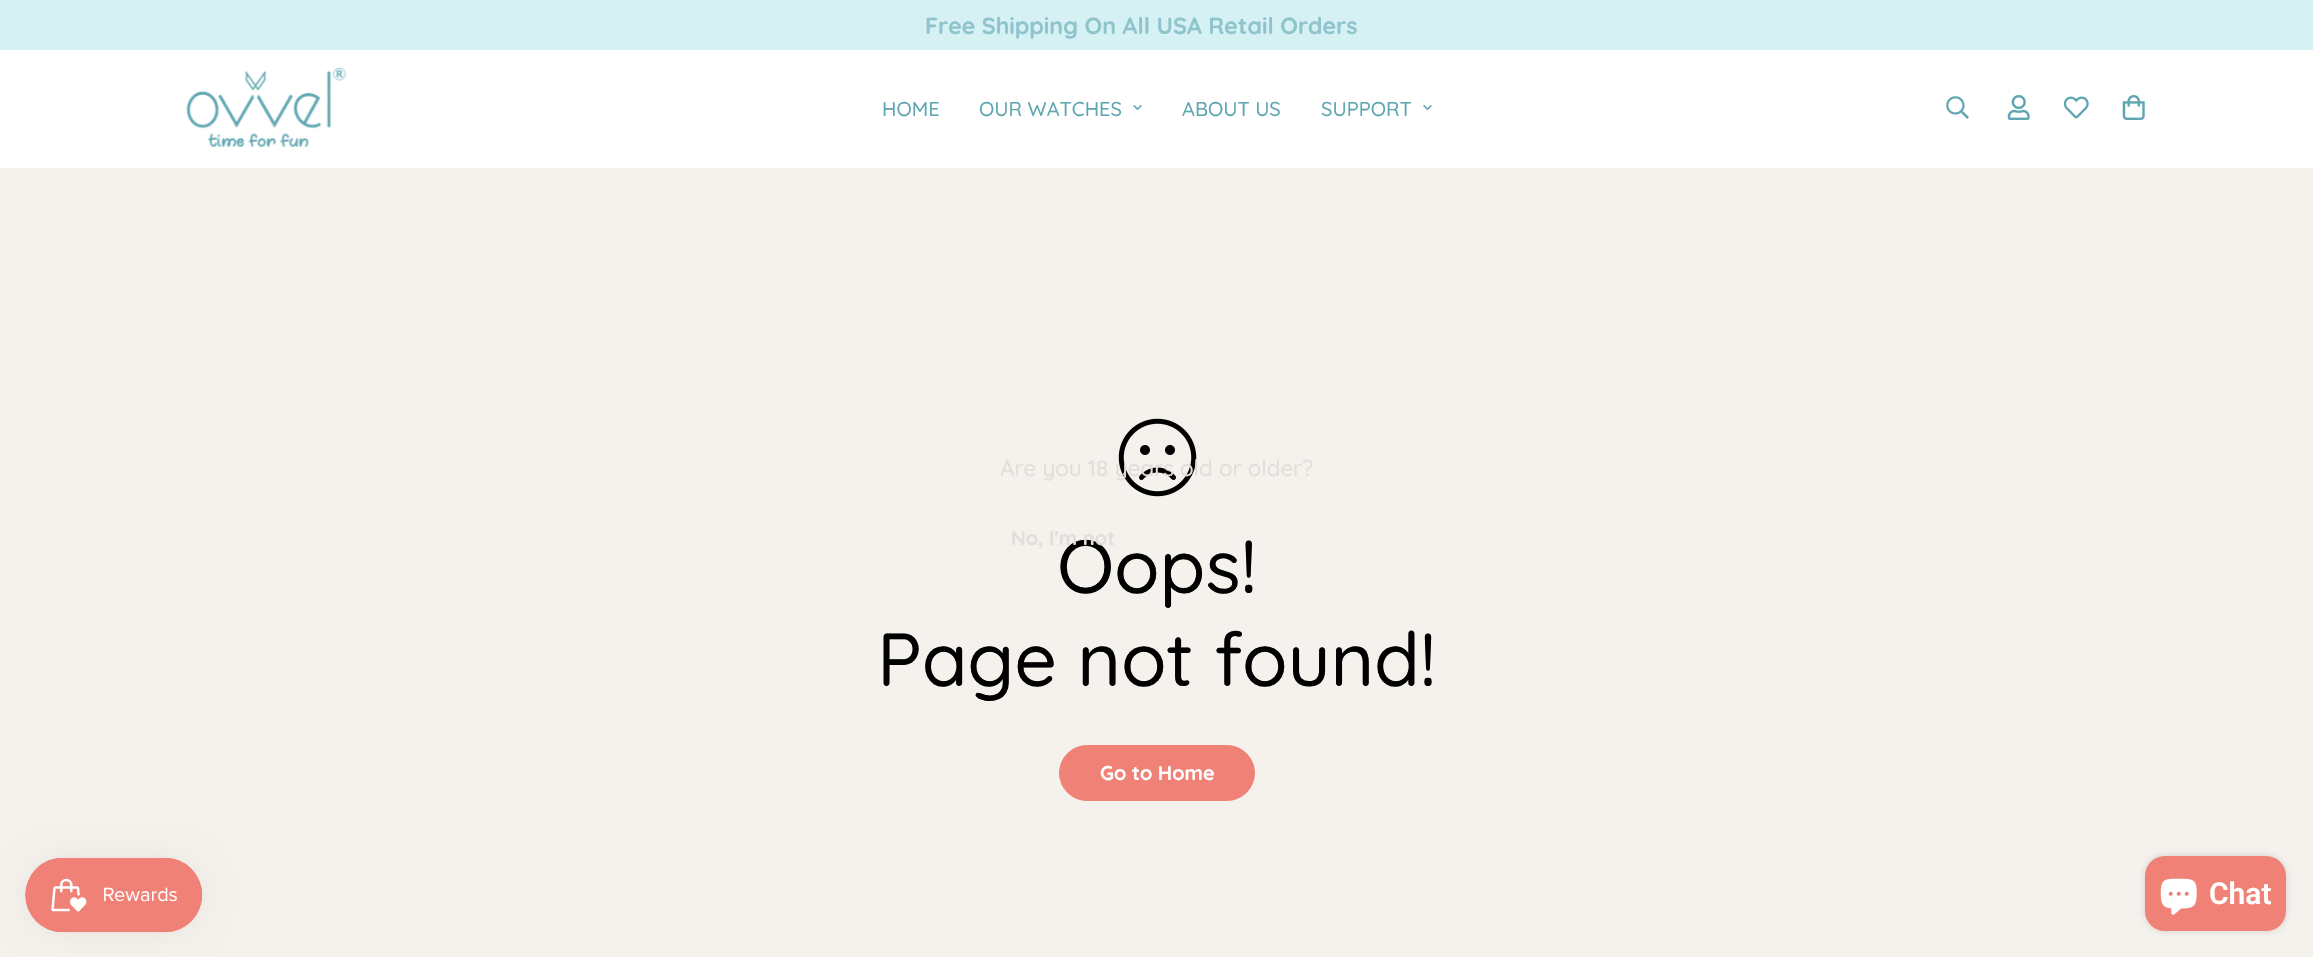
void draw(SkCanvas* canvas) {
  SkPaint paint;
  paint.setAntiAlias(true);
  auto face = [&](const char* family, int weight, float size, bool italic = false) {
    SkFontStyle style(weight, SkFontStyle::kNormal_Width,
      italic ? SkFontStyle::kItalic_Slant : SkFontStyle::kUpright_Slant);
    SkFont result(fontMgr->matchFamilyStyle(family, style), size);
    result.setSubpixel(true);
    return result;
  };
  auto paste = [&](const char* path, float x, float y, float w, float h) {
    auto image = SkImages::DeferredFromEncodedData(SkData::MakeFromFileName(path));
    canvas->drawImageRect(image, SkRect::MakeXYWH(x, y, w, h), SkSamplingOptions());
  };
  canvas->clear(0xffffffff);
  paint.setColor(0xffd6f1f4);
  canvas->drawRect(SkRect::MakeXYWH(0, 0, 2313, 50), paint);
  paste("img/1.png", 186, 67, 161, 81);
  paste("img/2.png", 1133, 105, 9, 5);
  paste("img/2.png", 1423, 105, 9, 5);
  paste("img/3.png", 1946, 96, 23, 23);
  paste("img/4.png", 2007, 95, 23, 25);
  paste("img/5.png", 2064, 96, 25, 23);
  paste("img/6.png", 2122, 95, 23, 25);
  paint.setColor(0xfff5f1ed);
  canvas->drawRect(SkRect::MakeXYWH(0, 168, 2313, 789), paint);
  paste("img/7.png", 1118, 418, 79, 79);
  paint.setColor(0xfff08177);
  canvas->drawRoundRect(SkRect::MakeXYWH(1059.5f, 745.5f, 195, 55), 27.5f, 27.5f, paint);
  paint.setStroke(true);
  paint.setStrokeWidth(1);
  canvas->drawRoundRect(SkRect::MakeXYWH(1059.5f, 745.5f, 195, 55), 27.5f, 27.5f, paint);
  paint.setStroke(false);
  paint.setColor(0x0d000000);
  paint.setMaskFilter(SkMaskFilter::MakeBlur(kNormal_SkBlurStyle, 15.5f));
  canvas->drawRoundRect(SkRect::MakeXYWH(25, 858, 178, 75), 37.5f, 37.5f, paint);
  paint.setMaskFilter(nullptr);
  paste("img/8.png", 25, 857, 178, 76);
  paint.setColor(0x26000000);
  paint.setMaskFilter(SkMaskFilter::MakeBlur(kNormal_SkBlurStyle, 3));
  canvas->drawRoundRect(SkRect::MakeXYWH(2145, 856, 141, 75), 20, 20, paint);
  paint.setMaskFilter(nullptr);
  paint.setColor(0xfff08177);
  canvas->drawRoundRect(SkRect::MakeXYWH(2145, 856, 141, 75), 20, 20, paint);
  paste("img/9.png", 2160, 878, 37, 37);
  auto f0 = face("Quicksand", 700, 23.3f);
  paint.setColor(0xff8fc4cc);
  canvas->drawString("Free Shipping On All USA Retail Orders", 925, 34, f0, paint);
  auto f1 = face("Quicksand", 500, 20);
  paint.setColor(0xff5fa6b1);
  {
    const struct { const char* s; float x, y; } items[] = {
      {"HOME", 882, 116},
      {"OUR WATCHES", 979, 116},
      {"ABOUT US", 1182, 116},
      {"SUPPORT", 1321, 116},
    };
    for (auto [s, x, y] : items) {
      canvas->drawString(s, x, y, f1, paint);
    }
  }
  auto f2 = face("Quicksand", 500, 22.5f);
  paint.setColor(0xffe2deda);
  canvas->drawString("Are you 18 years old or older?", 1000, 476, f2, paint);
  auto f3 = face("Quicksand", 500, 75);
  paint.setColor(0xff000000);
  canvas->drawString("Oops!", 1057, 593, f3, paint);
  auto f4 = face("Quicksand", 700, 20);
  paint.setColor(0xffe2deda);
  canvas->drawString("No, I'm not", 1011, 545, f4, paint);
  paint.setColor(0xff000000);
  canvas->drawString("Page not found!", 877, 686, f3, paint);
  paint.setColor(0xffffffff);
  canvas->drawString("Go to Home", 1100, 780, f4, paint);
  auto f5 = face("Roboto", 600, 30);
  canvas->drawString("Chat", 2209, 904, f5, paint);
}
